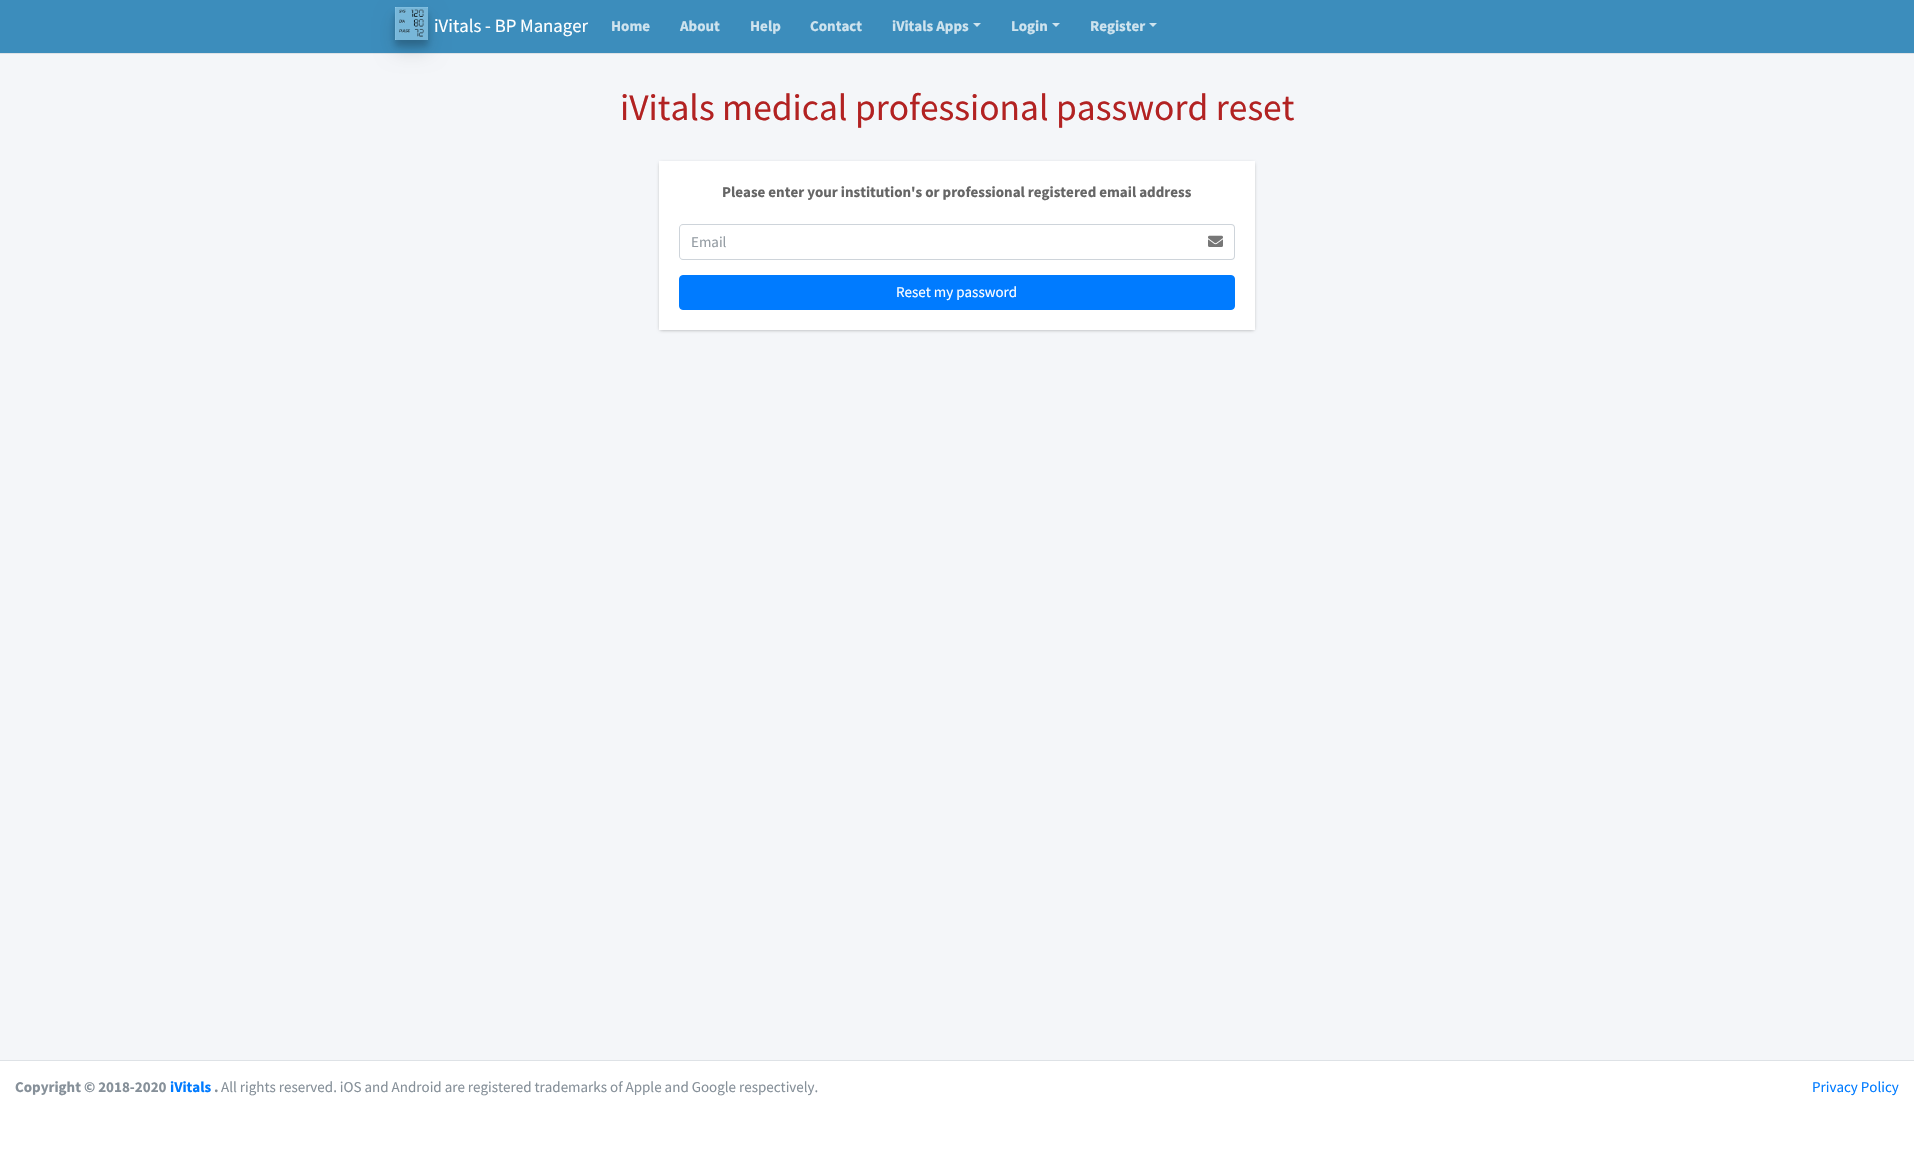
void draw(SkCanvas* canvas) {
  SkPaint paint;
  paint.setAntiAlias(true);
  auto face = [&](const char* family, int weight, float size, bool italic = false) {
    SkFontStyle style(weight, SkFontStyle::kNormal_Width,
      italic ? SkFontStyle::kItalic_Slant : SkFontStyle::kUpright_Slant);
    SkFont result(fontMgr->matchFamilyStyle(family, style), size);
    result.setSubpixel(true);
    return result;
  };
  auto paste = [&](const char* path, float x, float y, float w, float h) {
    auto image = SkImages::DeferredFromEncodedData(SkData::MakeFromFileName(path));
    canvas->drawImageRect(image, SkRect::MakeXYWH(x, y, w, h), SkSamplingOptions());
  };
  auto shape = [&](const char* data, bool evenOdd = false) {
    SkPath result = *SkParsePath::FromSVGString(data);
    if (evenOdd) result.setFillType(SkPathFillType::kEvenOdd);
    return result;
  };
  canvas->clear(0xffffffff);
  {
    const struct { float x, y, w, h; SkColor color; } items[] = {
      {0, 0, 1914, 53, 0xff3c8dbc},
      {0, 53, 1914, 1, 0xffdee2e6},
      {0, 54, 1914, 1006, 0xfff4f6f9},
    };
    for (auto [x, y, w, h, color] : items) {
      paint.setColor(color);
      canvas->drawRect(SkRect::MakeXYWH(x, y, w, h), paint);
    }
  }
  canvas->save();
  canvas->clipPath(shape("M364 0H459V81H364ZM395 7H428V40H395Z", true), true);
  paint.setColor(0x26000000);
  paint.setMaskFilter(SkMaskFilter::MakeBlur(kNormal_SkBlurStyle, 10));
  canvas->drawRect(SkRect::MakeXYWH(395, 17, 33, 33), paint);
  paint.setMaskFilter(nullptr);
  canvas->restore();
  canvas->save();
  canvas->clipPath(shape("M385 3H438V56H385ZM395 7H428V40H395Z", true), true);
  paint.setColor(0x3b0c1c26);
  paint.setMaskFilter(SkMaskFilter::MakeBlur(kNormal_SkBlurStyle, 3));
  canvas->drawRect(SkRect::MakeXYWH(395, 13, 33, 33), paint);
  paint.setMaskFilter(nullptr);
  canvas->restore();
  paste("img/1.png", 395, 7, 33, 33);
  paint.setColor(0xffcee3ee);
  canvas->drawPath(shape("M973 23H981L977 27Z"), paint);
  canvas->drawPath(shape("M1052 23H1060L1056 27Z"), paint);
  canvas->drawPath(shape("M1149 23H1157L1153 27Z"), paint);
  paint.setColor(0x33000000);
  paint.setMaskFilter(SkMaskFilter::MakeBlur(kNormal_SkBlurStyle, 1.5f));
  canvas->drawRoundRect(SkRect::MakeXYWH(659, 162, 596, 169), 4, 4, paint);
  paint.setMaskFilter(nullptr);
  paint.setColor(0xffffffff);
  canvas->drawRect(SkRect::MakeXYWH(659, 161, 596, 169), paint);
  paint.setColor(0xffced4da);
  canvas->drawPath(shape("M1196 224H1231C1233.5 224 1235 225.5 1235 228V256C1235 258.5 1233.5 260 1231 260H1196ZM1196 225H1231C1233 225 1234 226 1234 228V256C1234 258 1233 259 1231 259H1196Z", true), paint);
  canvas->drawPath(shape("M683 224H1197V260H683C681 260 679 258 679 256V228C679 226 681 224 683 224ZM683 225H1197V259H683C681 259 680 258 680 256V228C680 226 681 225 683 225Z", true), paint);
  paste("img/2.png", 1208, 235, 15, 12);
  paint.setColor(0xff007bff);
  canvas->drawRoundRect(SkRect::MakeXYWH(679.5f, 275.5f, 555, 34), 3.5f, 3.5f, paint);
  paint.setStroke(true);
  paint.setStrokeWidth(1);
  canvas->drawRoundRect(SkRect::MakeXYWH(679.5f, 275.5f, 555, 34), 3.5f, 3.5f, paint);
  paint.setStroke(false);
  paint.setColor(0xffdee2e6);
  canvas->drawRect(SkRect::MakeXYWH(0, 1060, 1914, 1), paint);
  auto f0 = face("Source Sans Pro", 400, 18.75f);
  paint.setColor(0xffffffff);
  canvas->drawString("iVitals - BP Manager", 434, 32, f0, paint);
  auto f1 = face("Source Sans Pro", 700, 15);
  paint.setColor(0xffcee3ee);
  {
    const struct { const char* s; float x, y; } items[] = {
      {"Home", 611, 31},
      {"About", 680, 31},
      {"Help", 750, 31},
      {"Contact", 810, 31},
      {"iVitals Apps", 892, 31},
      {"Login", 1011, 31},
      {"Register", 1090, 31},
    };
    for (auto [s, x, y] : items) {
      canvas->drawString(s, x, y, f1, paint);
    }
  }
  auto f2 = face("Source Sans Pro", 400, 37.5f);
  paint.setColor(0xffb22222);
  canvas->drawString("iVitals medical professional password reset", 620, 120, f2, paint);
  paint.setColor(0xff666666);
  canvas->drawString("Please enter your institution's or professional registered email address", 722, 197, f1, paint);
  auto f3 = face("Source Sans Pro", 400, 15);
  paint.setColor(0xff939ba2);
  canvas->drawString("Email", 691, 247, f3, paint);
  paint.setColor(0xffffffff);
  canvas->drawString("Reset my password", 896, 297, f3, paint);
  paint.setColor(0xff869099);
  canvas->drawString("Copyright © 2018-2020", 15, 1092, f1, paint);
  paint.setColor(0xff007bff);
  canvas->drawString("iVitals", 170, 1092, f1, paint);
  paint.setColor(0xff869099);
  canvas->drawString(".", 214, 1092, f1, paint);
  canvas->drawString("All rights reserved. iOS and Android are registered trademarks of Apple and Google respectively.", 221, 1092, f3, paint);
  paint.setColor(0xff007bff);
  canvas->drawString("Privacy Policy", 1812, 1092, f3, paint);
}
